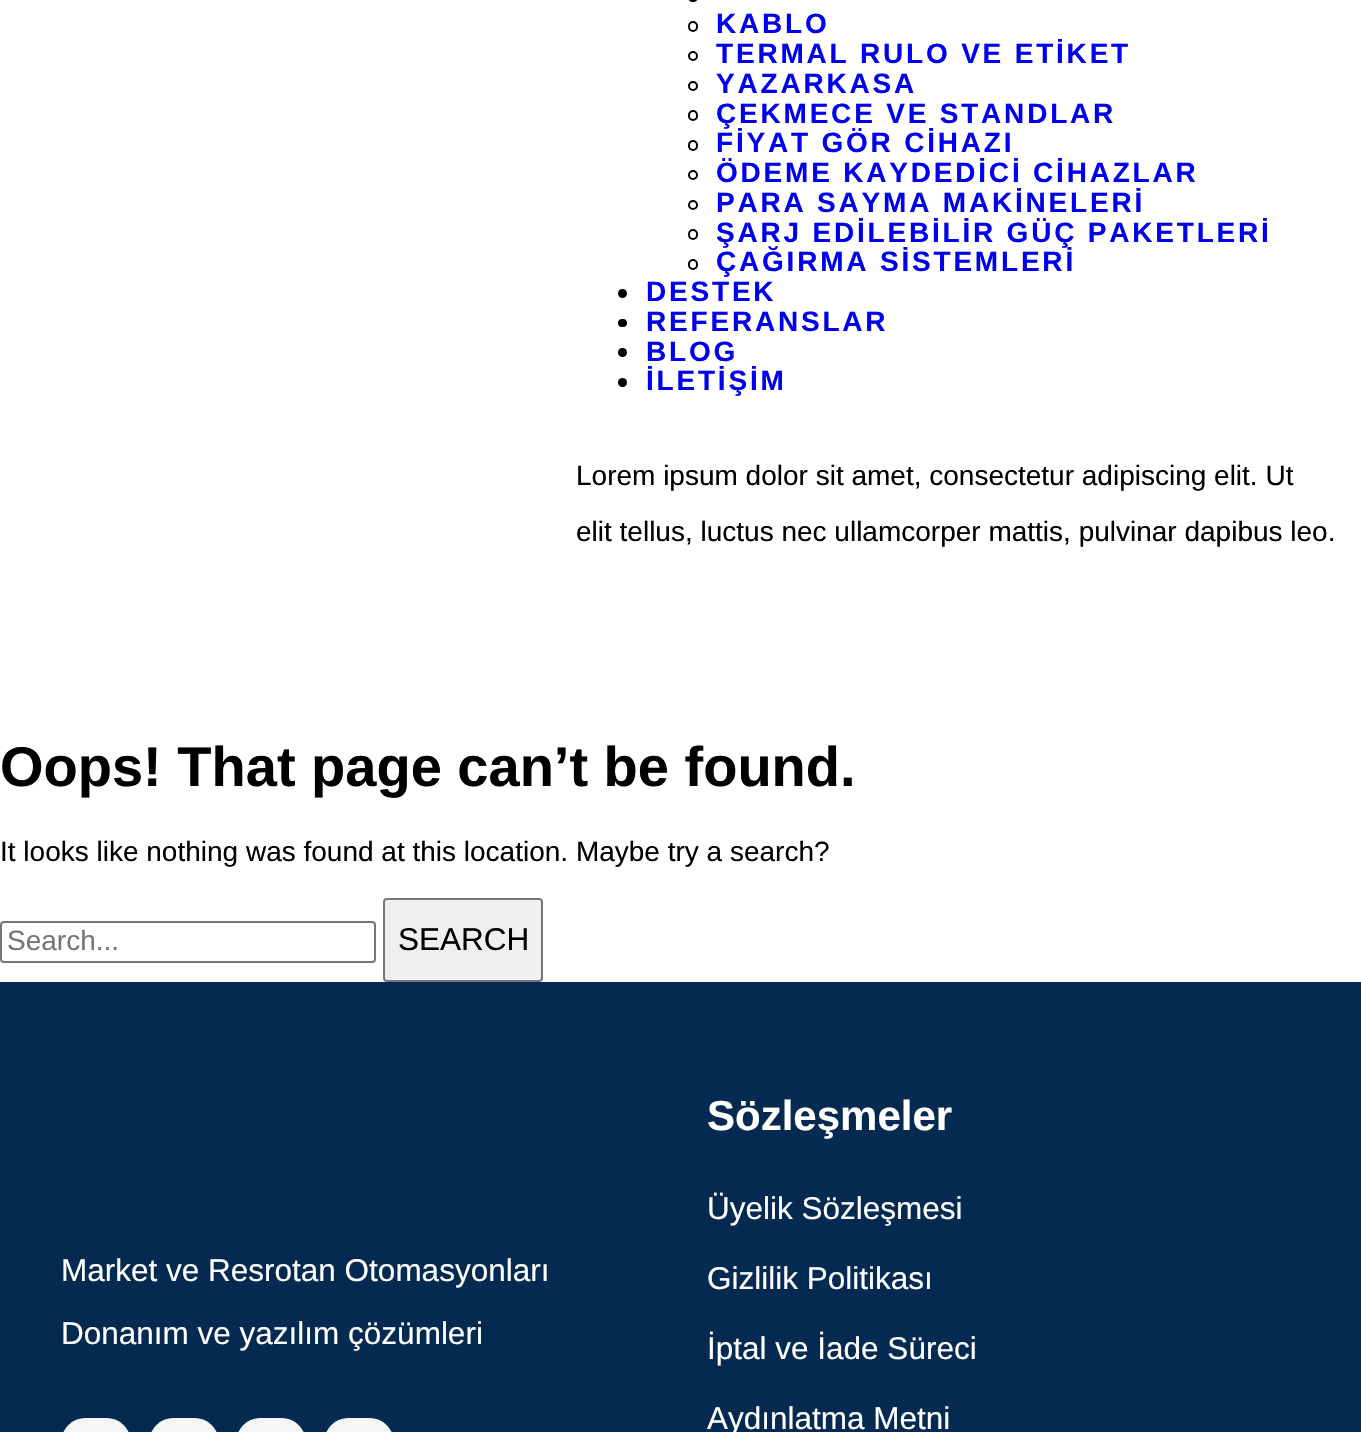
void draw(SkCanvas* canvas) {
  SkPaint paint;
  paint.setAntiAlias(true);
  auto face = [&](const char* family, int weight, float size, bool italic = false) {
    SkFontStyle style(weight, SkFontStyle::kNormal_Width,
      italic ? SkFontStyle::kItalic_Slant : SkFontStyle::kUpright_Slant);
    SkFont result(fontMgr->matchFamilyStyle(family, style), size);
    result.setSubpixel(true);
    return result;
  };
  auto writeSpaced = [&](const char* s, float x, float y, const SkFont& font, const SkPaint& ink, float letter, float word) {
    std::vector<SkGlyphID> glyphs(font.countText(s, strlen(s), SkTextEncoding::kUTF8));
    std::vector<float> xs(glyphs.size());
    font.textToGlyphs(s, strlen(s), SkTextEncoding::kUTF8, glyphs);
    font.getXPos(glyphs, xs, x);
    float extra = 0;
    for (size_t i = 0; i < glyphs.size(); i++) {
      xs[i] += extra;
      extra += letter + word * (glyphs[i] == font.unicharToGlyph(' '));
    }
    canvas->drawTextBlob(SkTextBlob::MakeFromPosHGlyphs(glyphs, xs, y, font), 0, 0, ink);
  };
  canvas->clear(0xffffffff);
  paint.setStroke(true);
  paint.setStrokeWidth(2);
  paint.setColor(0xff000000);
  canvas->drawRoundRect(SkRect::MakeXYWH(689, -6, 8, 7), 4, 4, paint);
  canvas->drawRoundRect(SkRect::MakeXYWH(689, 22, 8, 9), 4, 4, paint);
  canvas->drawCircle(693, 56, 4, paint);
  canvas->drawCircle(693, 86, 4, paint);
  canvas->drawRoundRect(SkRect::MakeXYWH(689, 111, 8, 9), 4, 4, paint);
  canvas->drawRoundRect(SkRect::MakeXYWH(689, 141, 8, 9), 4, 4, paint);
  canvas->drawCircle(693, 175, 4, paint);
  canvas->drawCircle(693, 205, 4, paint);
  canvas->drawRoundRect(SkRect::MakeXYWH(689, 230, 8, 9), 4, 4, paint);
  canvas->drawRoundRect(SkRect::MakeXYWH(689, 260, 8, 9), 4, 4, paint);
  paint.setStroke(false);
  canvas->drawCircle(622.5f, 293.5f, 4.5f, paint);
  canvas->drawRoundRect(SkRect::MakeXYWH(618, 319, 9, 8), 4, 4, paint);
  canvas->drawCircle(622.5f, 352.5f, 4.5f, paint);
  canvas->drawCircle(622.5f, 382.5f, 4.5f, paint);
  paint.setStroke(true);
  paint.setColor(0xff767676);
  canvas->drawRoundRect(SkRect::MakeXYWH(1, 922, 374, 40), 3, 3, paint);
  paint.setStroke(false);
  paint.setColor(0xffefefef);
  canvas->drawRoundRect(SkRect::MakeXYWH(384, 899, 158, 82), 3, 3, paint);
  paint.setStroke(true);
  paint.setColor(0xff767676);
  canvas->drawRoundRect(SkRect::MakeXYWH(384, 899, 158, 82), 3, 3, paint);
  paint.setStroke(false);
  paint.setColor(0xff052a52);
  canvas->drawRect(SkRect::MakeXYWH(0, 982, 1361, 450), paint);
  paint.setColor(0xfff6f6f6);
  canvas->drawRoundRect(SkRect::MakeXYWH(61, 1418, 70, 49), 35, 35, paint);
  canvas->drawRoundRect(SkRect::MakeXYWH(149, 1418, 70, 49), 35, 35, paint);
  canvas->drawRoundRect(SkRect::MakeXYWH(236, 1418, 70, 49), 35, 35, paint);
  canvas->drawRoundRect(SkRect::MakeXYWH(324, 1418, 70, 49), 35, 35, paint);
  auto f0 = face("Liberation Sans", 700, 28);
  paint.setColor(0xff0000ee);
  {
    const struct { const char* s; float x, y; } items[] = {
      {"KABLO", 716, 33},
      {"TERMAL RULO VE ETİKET", 716, 63},
      {"YAZARKASA", 716, 93},
      {"ÇEKMECE VE STANDLAR", 716, 123},
      {"FİYAT GÖR CİHAZI", 716, 152},
      {"ÖDEME KAYDEDİCİ CİHAZLAR", 716, 182},
      {"PARA SAYMA MAKİNELERİ", 716, 212},
      {"ŞARJ EDİLEBİLİR GÜÇ PAKETLERİ", 716, 242},
      {"ÇAĞIRMA SİSTEMLERİ", 716, 271},
      {"DESTEK", 646, 301},
      {"REFERANSLAR", 646, 331},
      {"BLOG", 646, 361},
      {"İLETİŞİM", 646, 390},
    };
    for (auto [s, x, y] : items) {
      writeSpaced(s, x, y, f0, paint, 2.8f, 0);
    }
  }
  auto f1 = face("Liberation Sans", 400, 28);
  paint.setColor(0xff000000);
  canvas->drawString("Lorem ipsum dolor sit amet, consectetur adipiscing elit. Ut", 576, 485, f1, paint);
  canvas->drawString("elit tellus, luctus nec ullamcorper mattis, pulvinar dapibus leo.", 576, 541, f1, paint);
  auto f2 = face("Liberation Sans", 700, 56);
  canvas->drawString("Oops! That page can’t be found.", 0, 786, f2, paint);
  canvas->drawString("It looks like nothing was found at this location. Maybe try a search?", 0, 861, f1, paint);
  paint.setColor(0xff757575);
  canvas->drawString("Search...", 7, 950, f1, paint);
  auto f3 = face("Liberation Sans", 400, 31.5f);
  paint.setColor(0xff000000);
  canvas->drawString("SEARCH", 398, 950, f3, paint);
  paint.setColor(0xffffffff);
  canvas->drawString("Market ve Resrotan Otomasyonları", 61, 1281, f3, paint);
  canvas->drawString("Donanım ve yazılım çözümleri", 61, 1344, f3, paint);
  auto f4 = face("Liberation Sans", 700, 42);
  canvas->drawString("Sözleşmeler", 707, 1130, f4, paint);
  {
    const struct { const char* s; float x, y; } items[] = {
      {"Üyelik Sözleşmesi", 707, 1219},
      {"Gizlilik Politikası", 707, 1289},
      {"İptal ve İade Süreci", 707, 1359},
      {"Aydınlatma Metni", 707, 1429},
    };
    for (auto [s, x, y] : items) {
      canvas->drawString(s, x, y, f3, paint);
    }
  }
}
